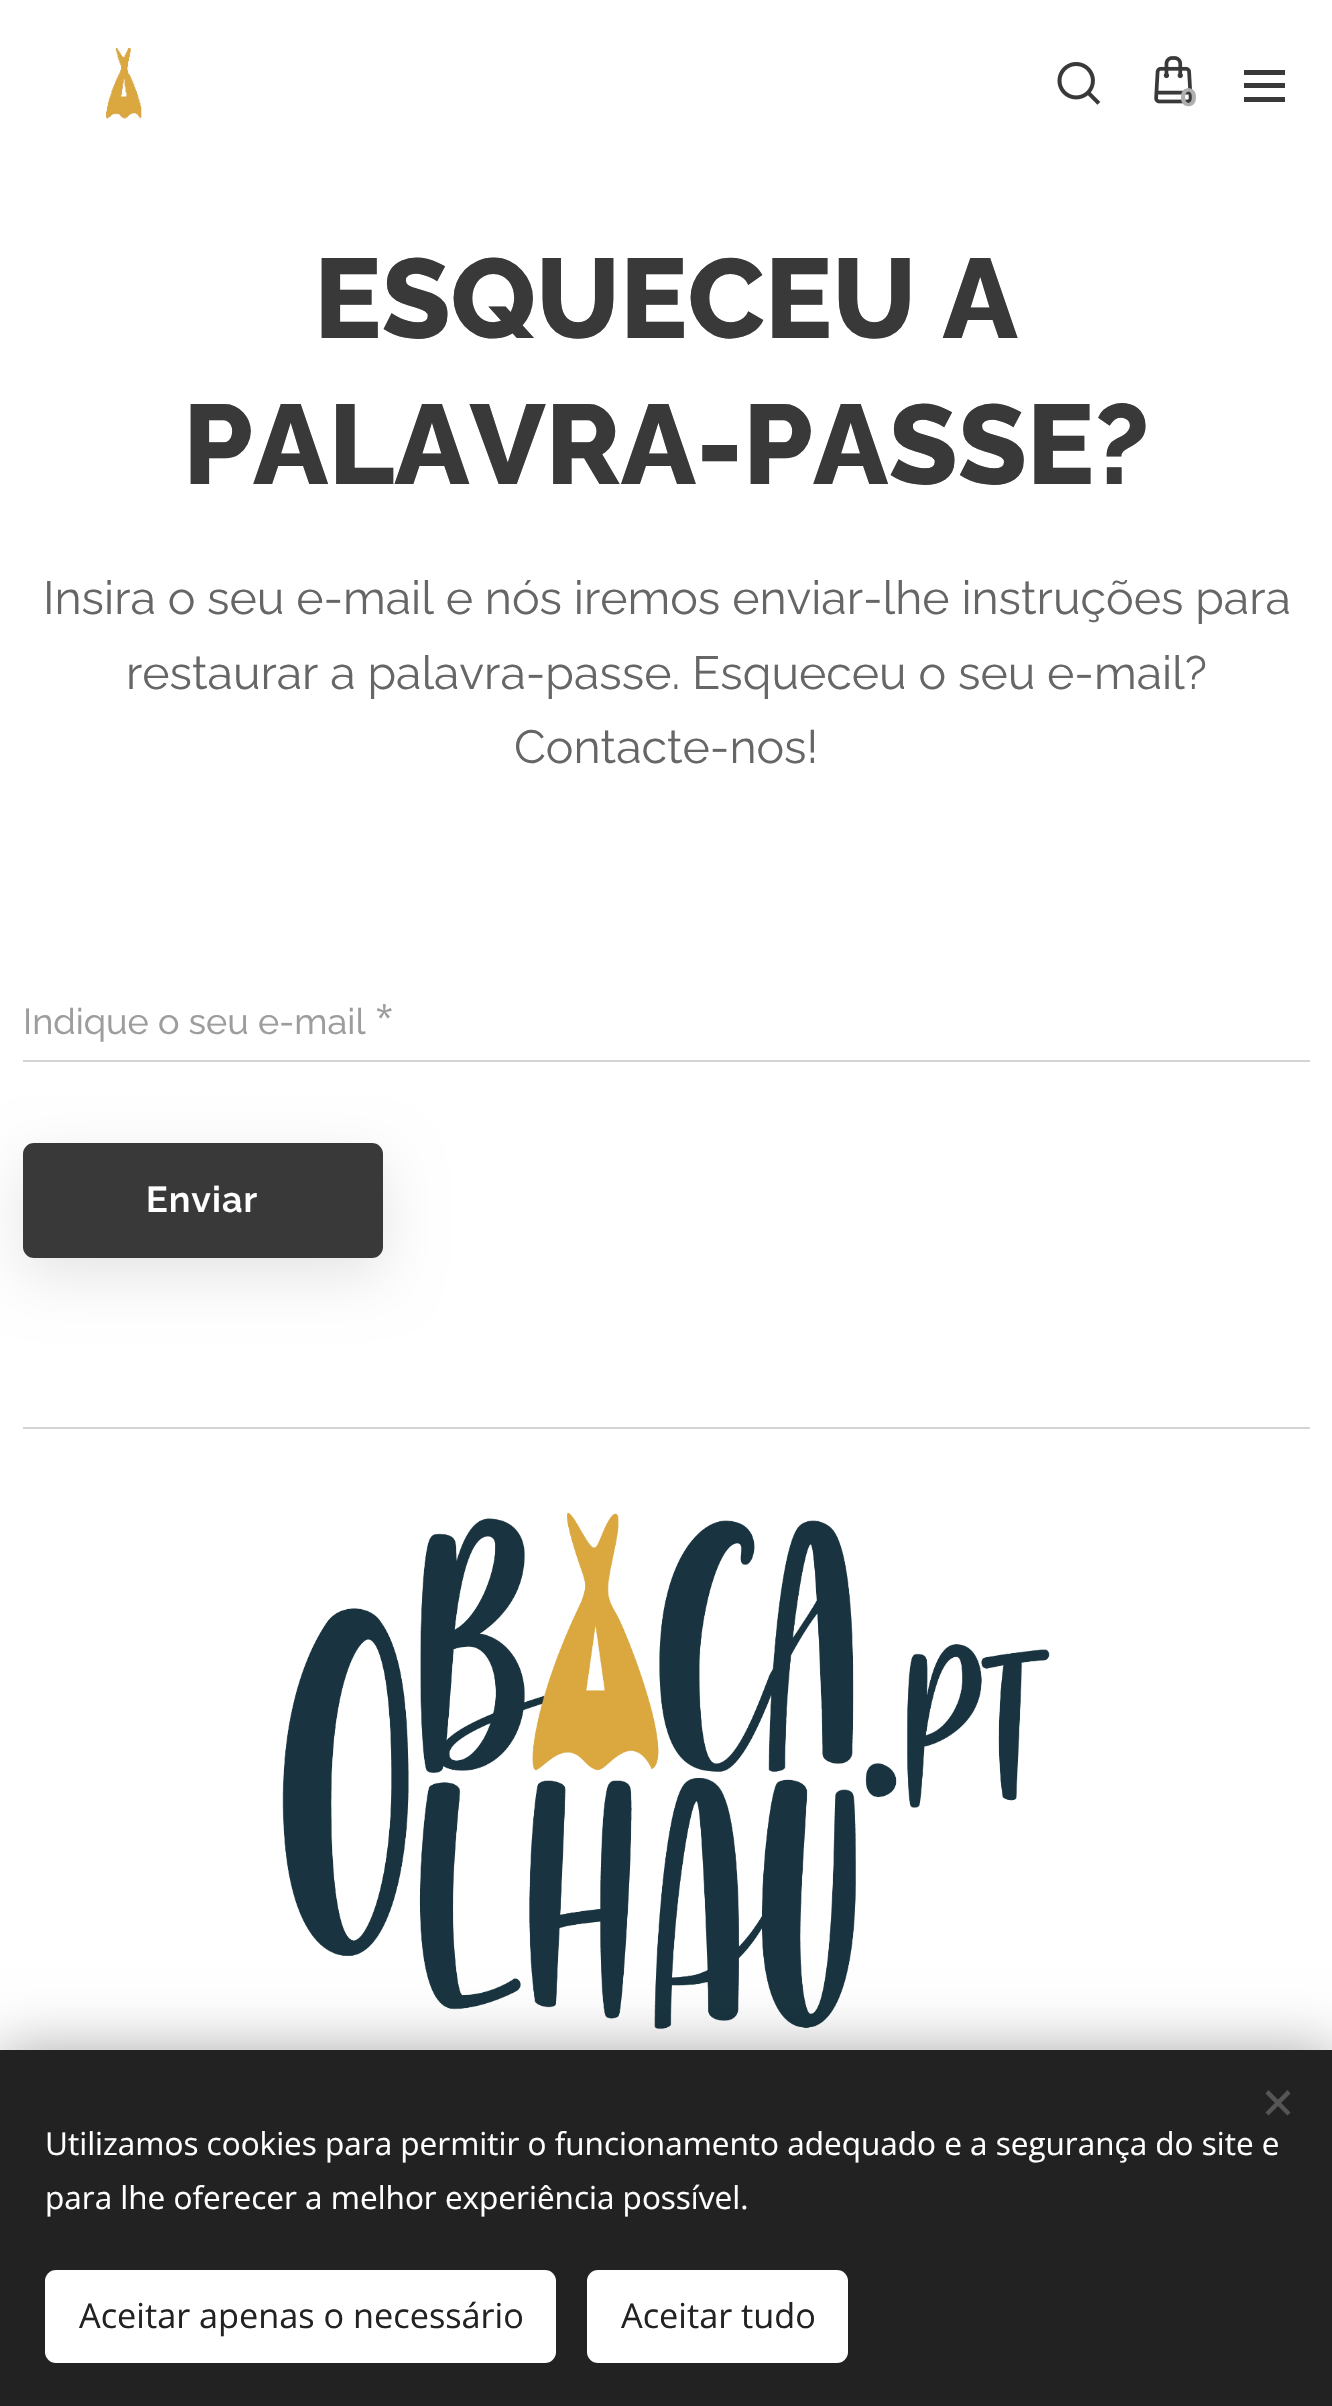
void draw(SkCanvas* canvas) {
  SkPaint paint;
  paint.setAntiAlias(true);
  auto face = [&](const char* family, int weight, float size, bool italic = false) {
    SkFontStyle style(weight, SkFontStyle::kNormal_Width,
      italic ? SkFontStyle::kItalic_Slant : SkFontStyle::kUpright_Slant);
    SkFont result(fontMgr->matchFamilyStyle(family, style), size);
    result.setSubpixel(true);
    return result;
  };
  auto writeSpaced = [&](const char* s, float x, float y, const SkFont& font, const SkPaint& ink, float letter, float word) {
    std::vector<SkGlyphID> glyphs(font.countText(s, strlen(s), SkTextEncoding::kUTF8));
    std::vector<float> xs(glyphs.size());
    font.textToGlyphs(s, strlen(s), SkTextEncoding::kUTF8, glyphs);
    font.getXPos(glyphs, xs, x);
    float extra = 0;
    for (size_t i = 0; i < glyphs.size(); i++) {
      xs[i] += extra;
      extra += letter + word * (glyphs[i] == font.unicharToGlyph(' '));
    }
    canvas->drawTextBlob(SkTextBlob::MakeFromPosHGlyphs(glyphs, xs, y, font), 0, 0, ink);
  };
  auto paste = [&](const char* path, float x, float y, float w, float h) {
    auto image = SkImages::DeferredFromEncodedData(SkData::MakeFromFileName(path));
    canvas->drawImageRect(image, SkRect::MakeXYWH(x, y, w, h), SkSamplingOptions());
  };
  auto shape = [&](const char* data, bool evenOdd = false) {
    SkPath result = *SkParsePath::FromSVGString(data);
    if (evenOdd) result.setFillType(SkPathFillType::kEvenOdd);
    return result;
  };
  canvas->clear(0xffffffff);
  paste("img/1.png", 106, 47, 36, 72);
  paste("img/2.png", 1057, 62, 44, 43);
  paste("img/3.png", 1154, 56, 39, 48);
  {
    const struct { float x, y, w, h; SkColor color; } items[] = {
      {1244, 83, 41, 5, 0xff393939},
      {1244, 70, 41, 5, 0xff393939},
      {1244, 97, 41, 5, 0xff393939},
      {23, 1060, 1287, 2, 0xffd4d4d4},
    };
    for (auto [x, y, w, h, color] : items) {
      paint.setColor(color);
      canvas->drawRect(SkRect::MakeXYWH(x, y, w, h), paint);
    }
  }
  paint.setColor(0x1a000000);
  paint.setMaskFilter(SkMaskFilter::MakeBlur(kNormal_SkBlurStyle, 28));
  canvas->drawRoundRect(SkRect::MakeXYWH(23, 1161, 360, 115), 11, 11, paint);
  paint.setMaskFilter(nullptr);
  paint.setColor(0xff393939);
  canvas->drawRoundRect(SkRect::MakeXYWH(24, 1144, 358, 113), 10, 10, paint);
  paint.setStroke(true);
  paint.setStrokeWidth(2);
  canvas->drawRoundRect(SkRect::MakeXYWH(24, 1144, 358, 113), 10, 10, paint);
  paint.setStroke(false);
  paint.setColor(0xffd4d4d4);
  canvas->drawRect(SkRect::MakeXYWH(23, 1427, 1287, 2), paint);
  paste("img/4.png", 282, 1512, 768, 517);
  paint.setColor(0x54000000);
  paint.setMaskFilter(SkMaskFilter::MakeBlur(kNormal_SkBlurStyle, 28));
  canvas->drawRect(SkRect::MakeXYWH(0, 2050, 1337, 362), paint);
  paint.setMaskFilter(nullptr);
  paint.setColor(0xff222222);
  canvas->drawRect(SkRect::MakeXYWH(0, 2050, 1332, 356), paint);
  paint.setColor(0xff555555);
  canvas->drawPath(shape("M1265.5 2112.5L1287.5 2090L1290.5 2093.5L1268.5 2115.5Z"), paint);
  canvas->drawPath(shape("M1268.5 2090L1290.5 2112.5L1287.5 2115.5L1265.5 2093.5Z"), paint);
  paint.setColor(0xffffffff);
  canvas->drawRoundRect(SkRect::MakeXYWH(45, 2270, 511, 93), 11, 11, paint);
  canvas->drawRoundRect(SkRect::MakeXYWH(587, 2270, 261, 93), 11, 11, paint);
  auto f0 = face("Montserrat", 700, 25);
  paint.setColor(0xffafafaf);
  canvas->drawString("0", 1180, 106, f0, paint);
  auto f1 = face("Raleway", 800, 112.5f);
  paint.setColor(0xff393939);
  canvas->drawString("ESQUECEU A", 314, 338, f1, paint);
  canvas->drawString("PALAVRA-PASSE?", 183, 484, f1, paint);
  auto f2 = face("Raleway", 400, 46.45f);
  paint.setColor(0xff666666);
  {
    const struct { const char* s; float x, y; } items[] = {
      {"Insira o seu e-mail e nós iremos enviar-lhe instruções para", 43, 614},
      {"restaurar a palavra-passe. Esqueceu o seu e-mail?", 126, 689},
      {"Contacte-nos!", 514, 763},
    };
    for (auto [s, x, y] : items) {
      canvas->drawString(s, x, y, f2, paint);
    }
  }
  auto f3 = face("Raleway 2", 400, 36);
  paint.setColor(0xff9d9d9d);
  canvas->drawString("Indique o seu e-mail", 23, 1034, f3, paint);
  auto f4 = face("Roboto Flex", 400, 31.5f);
  canvas->drawString("*", 376, 1027, f4, paint);
  auto f5 = face("Raleway", 600, 36);
  paint.setColor(0xffffffff);
  writeSpaced("Enviar", 146, 1212, f5, paint, 1, 0);
  auto f6 = face("Open Sans", 400, 31.5f);
  canvas->drawString("Utilizamos cookies para permitir o funcionamento adequado e a segurança do site e", 45, 2155, f6, paint);
  canvas->drawString("para lhe oferecer a melhor experiência possível.", 45, 2209, f6, paint);
  auto f7 = face("Open Sans", 400, 34.25f);
  paint.setColor(0xff222222);
  canvas->drawString("Aceitar apenas o necessário", 79, 2328, f7, paint);
  canvas->drawString("Aceitar tudo", 621, 2328, f7, paint);
}
